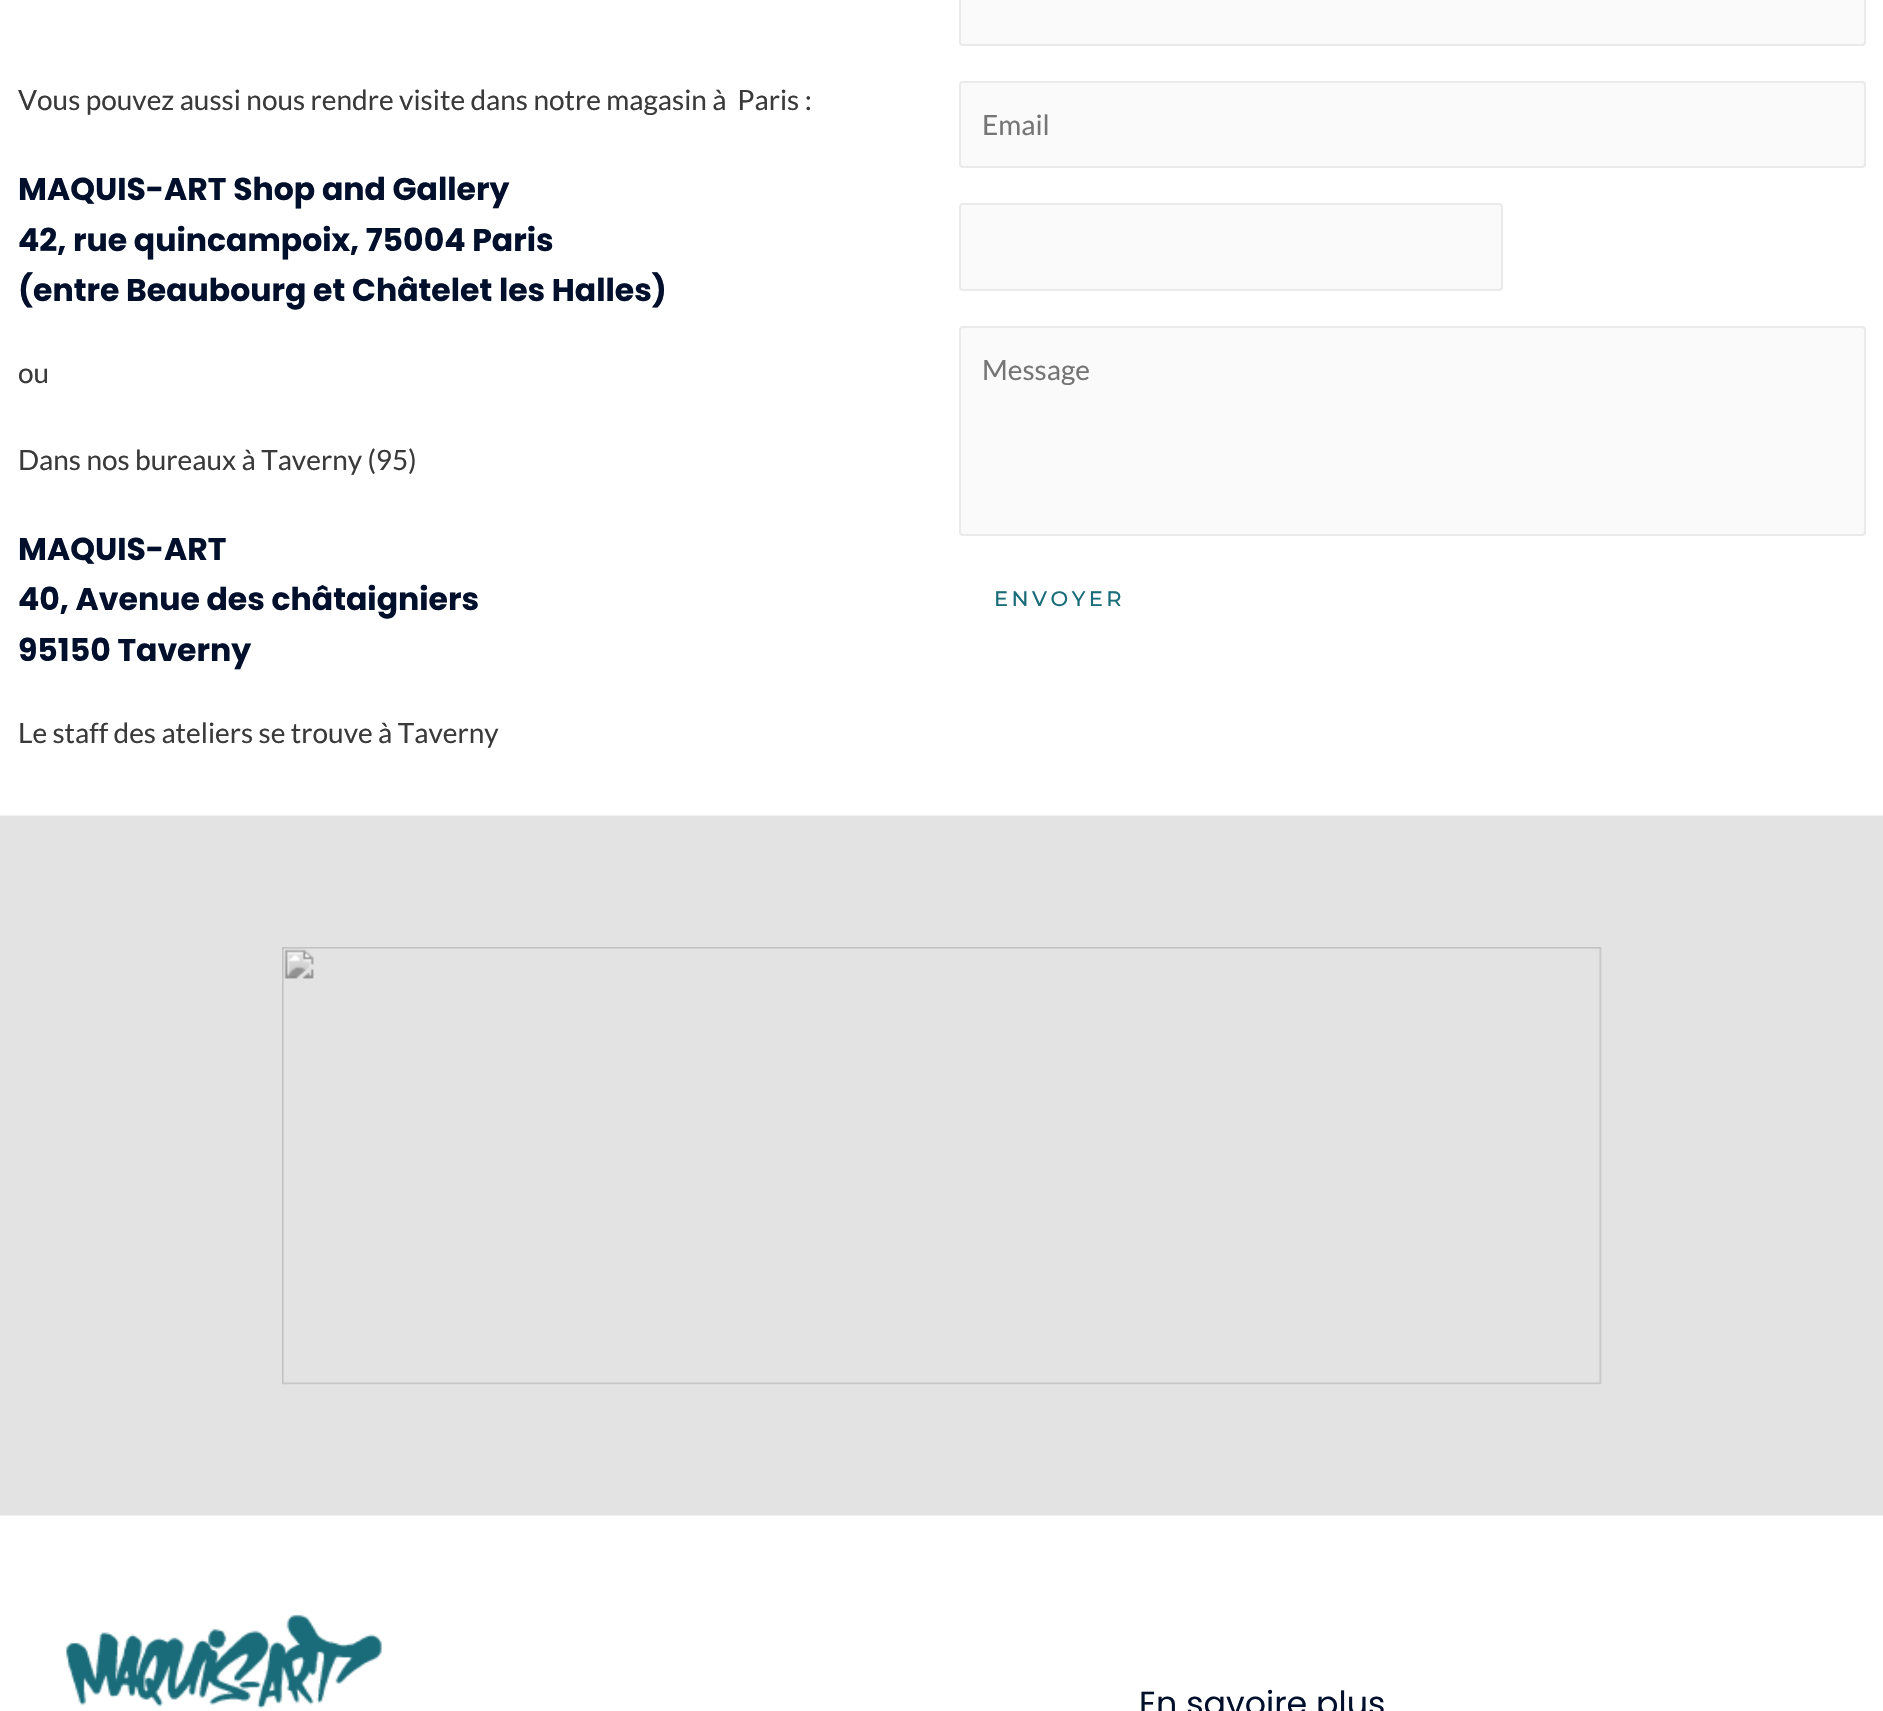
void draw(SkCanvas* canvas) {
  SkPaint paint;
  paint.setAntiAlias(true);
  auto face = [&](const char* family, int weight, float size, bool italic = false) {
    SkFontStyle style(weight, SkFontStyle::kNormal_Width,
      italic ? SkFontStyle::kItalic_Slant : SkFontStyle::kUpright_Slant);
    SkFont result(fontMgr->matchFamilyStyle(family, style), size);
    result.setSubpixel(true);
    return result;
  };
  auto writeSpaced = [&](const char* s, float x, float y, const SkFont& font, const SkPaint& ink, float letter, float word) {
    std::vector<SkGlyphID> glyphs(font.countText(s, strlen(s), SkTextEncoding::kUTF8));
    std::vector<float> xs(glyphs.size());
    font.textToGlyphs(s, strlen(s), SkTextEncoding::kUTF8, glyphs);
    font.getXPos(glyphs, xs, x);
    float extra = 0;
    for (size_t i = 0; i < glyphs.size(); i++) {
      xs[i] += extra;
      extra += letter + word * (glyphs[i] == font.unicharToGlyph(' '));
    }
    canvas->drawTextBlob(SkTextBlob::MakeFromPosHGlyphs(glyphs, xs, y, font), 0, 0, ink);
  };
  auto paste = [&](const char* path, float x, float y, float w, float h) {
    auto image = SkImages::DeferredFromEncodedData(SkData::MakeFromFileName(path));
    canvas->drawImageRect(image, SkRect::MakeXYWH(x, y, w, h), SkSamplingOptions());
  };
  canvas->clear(0xffffffff);
  paint.setColor(0xfffafafa);
  canvas->drawRoundRect(SkRect::MakeXYWH(960, -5, 905, 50), 3, 3, paint);
  paint.setStroke(true);
  paint.setStrokeWidth(2);
  paint.setColor(0xffeaeaea);
  canvas->drawRoundRect(SkRect::MakeXYWH(960, -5, 905, 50), 3, 3, paint);
  paint.setStroke(false);
  paint.setColor(0xfffafafa);
  canvas->drawRoundRect(SkRect::MakeXYWH(960, 82, 905, 85), 3, 3, paint);
  paint.setStroke(true);
  paint.setColor(0xffeaeaea);
  canvas->drawRoundRect(SkRect::MakeXYWH(960, 82, 905, 85), 3, 3, paint);
  paint.setStroke(false);
  paint.setColor(0xfffafafa);
  canvas->drawRoundRect(SkRect::MakeXYWH(960, 204, 542, 86), 3, 3, paint);
  paint.setStroke(true);
  paint.setColor(0xffeaeaea);
  canvas->drawRoundRect(SkRect::MakeXYWH(960, 204, 542, 86), 3, 3, paint);
  paint.setStroke(false);
  paint.setColor(0xfffafafa);
  canvas->drawRoundRect(SkRect::MakeXYWH(960, 327, 905, 208), 3, 3, paint);
  paint.setStroke(true);
  paint.setColor(0xffeaeaea);
  canvas->drawRoundRect(SkRect::MakeXYWH(960, 327, 905, 208), 3, 3, paint);
  paste("img/1.png", 0, 815, 1883, 701);
  paste("img/2.png", 66, 1614, 316, 95);
  auto f0 = face("Lato", 400, 28);
  paint.setStroke(false);
  paint.setColor(0xff3a3a3a);
  canvas->drawString("Vous pouvez aussi nous rendre visite dans notre magasin à  Paris :", 18, 110, f0, paint);
  auto f1 = face("Poppins", 700, 31.5f);
  paint.setColor(0xff000f2b);
  {
    const struct { const char* s; float x, y; } items[] = {
      {"MAQUIS-ART Shop and Gallery", 18, 200},
      {"42, rue quincampoix, 75004 Paris", 18, 251},
      {"(entre Beaubourg et Châtelet les Halles)", 18, 301},
    };
    for (auto [s, x, y] : items) {
      canvas->drawString(s, x, y, f1, paint);
    }
  }
  paint.setColor(0xff3a3a3a);
  canvas->drawString("ou", 18, 383, f0, paint);
  canvas->drawString("Dans nos bureaux à Taverny (95)", 18, 470, f0, paint);
  paint.setColor(0xff000f2b);
  {
    const struct { const char* s; float x, y; } items[] = {
      {"MAQUIS-ART", 18, 560},
      {"40, Avenue des châtaigniers", 18, 610},
      {"95150 Taverny", 18, 661},
    };
    for (auto [s, x, y] : items) {
      canvas->drawString(s, x, y, f1, paint);
    }
  }
  paint.setColor(0xff3a3a3a);
  canvas->drawString("Le staff des ateliers se trouve à Taverny", 18, 743, f0, paint);
  paint.setColor(0xff757575);
  canvas->drawString("Email", 982, 135, f0, paint);
  canvas->drawString("Message", 982, 380, f0, paint);
  auto f2 = face("Montserrat", 100, 21);
  paint.setColor(0xff1a6c7a);
  writeSpaced("ENVOYER", 994, 606, f2, paint, 3.5f, 0);
  auto f3 = face("Poppins", 400, 33.25f);
  paint.setColor(0xff000f2b);
  canvas->drawString("En savoire plus", 1139, 1715, f3, paint);
}
